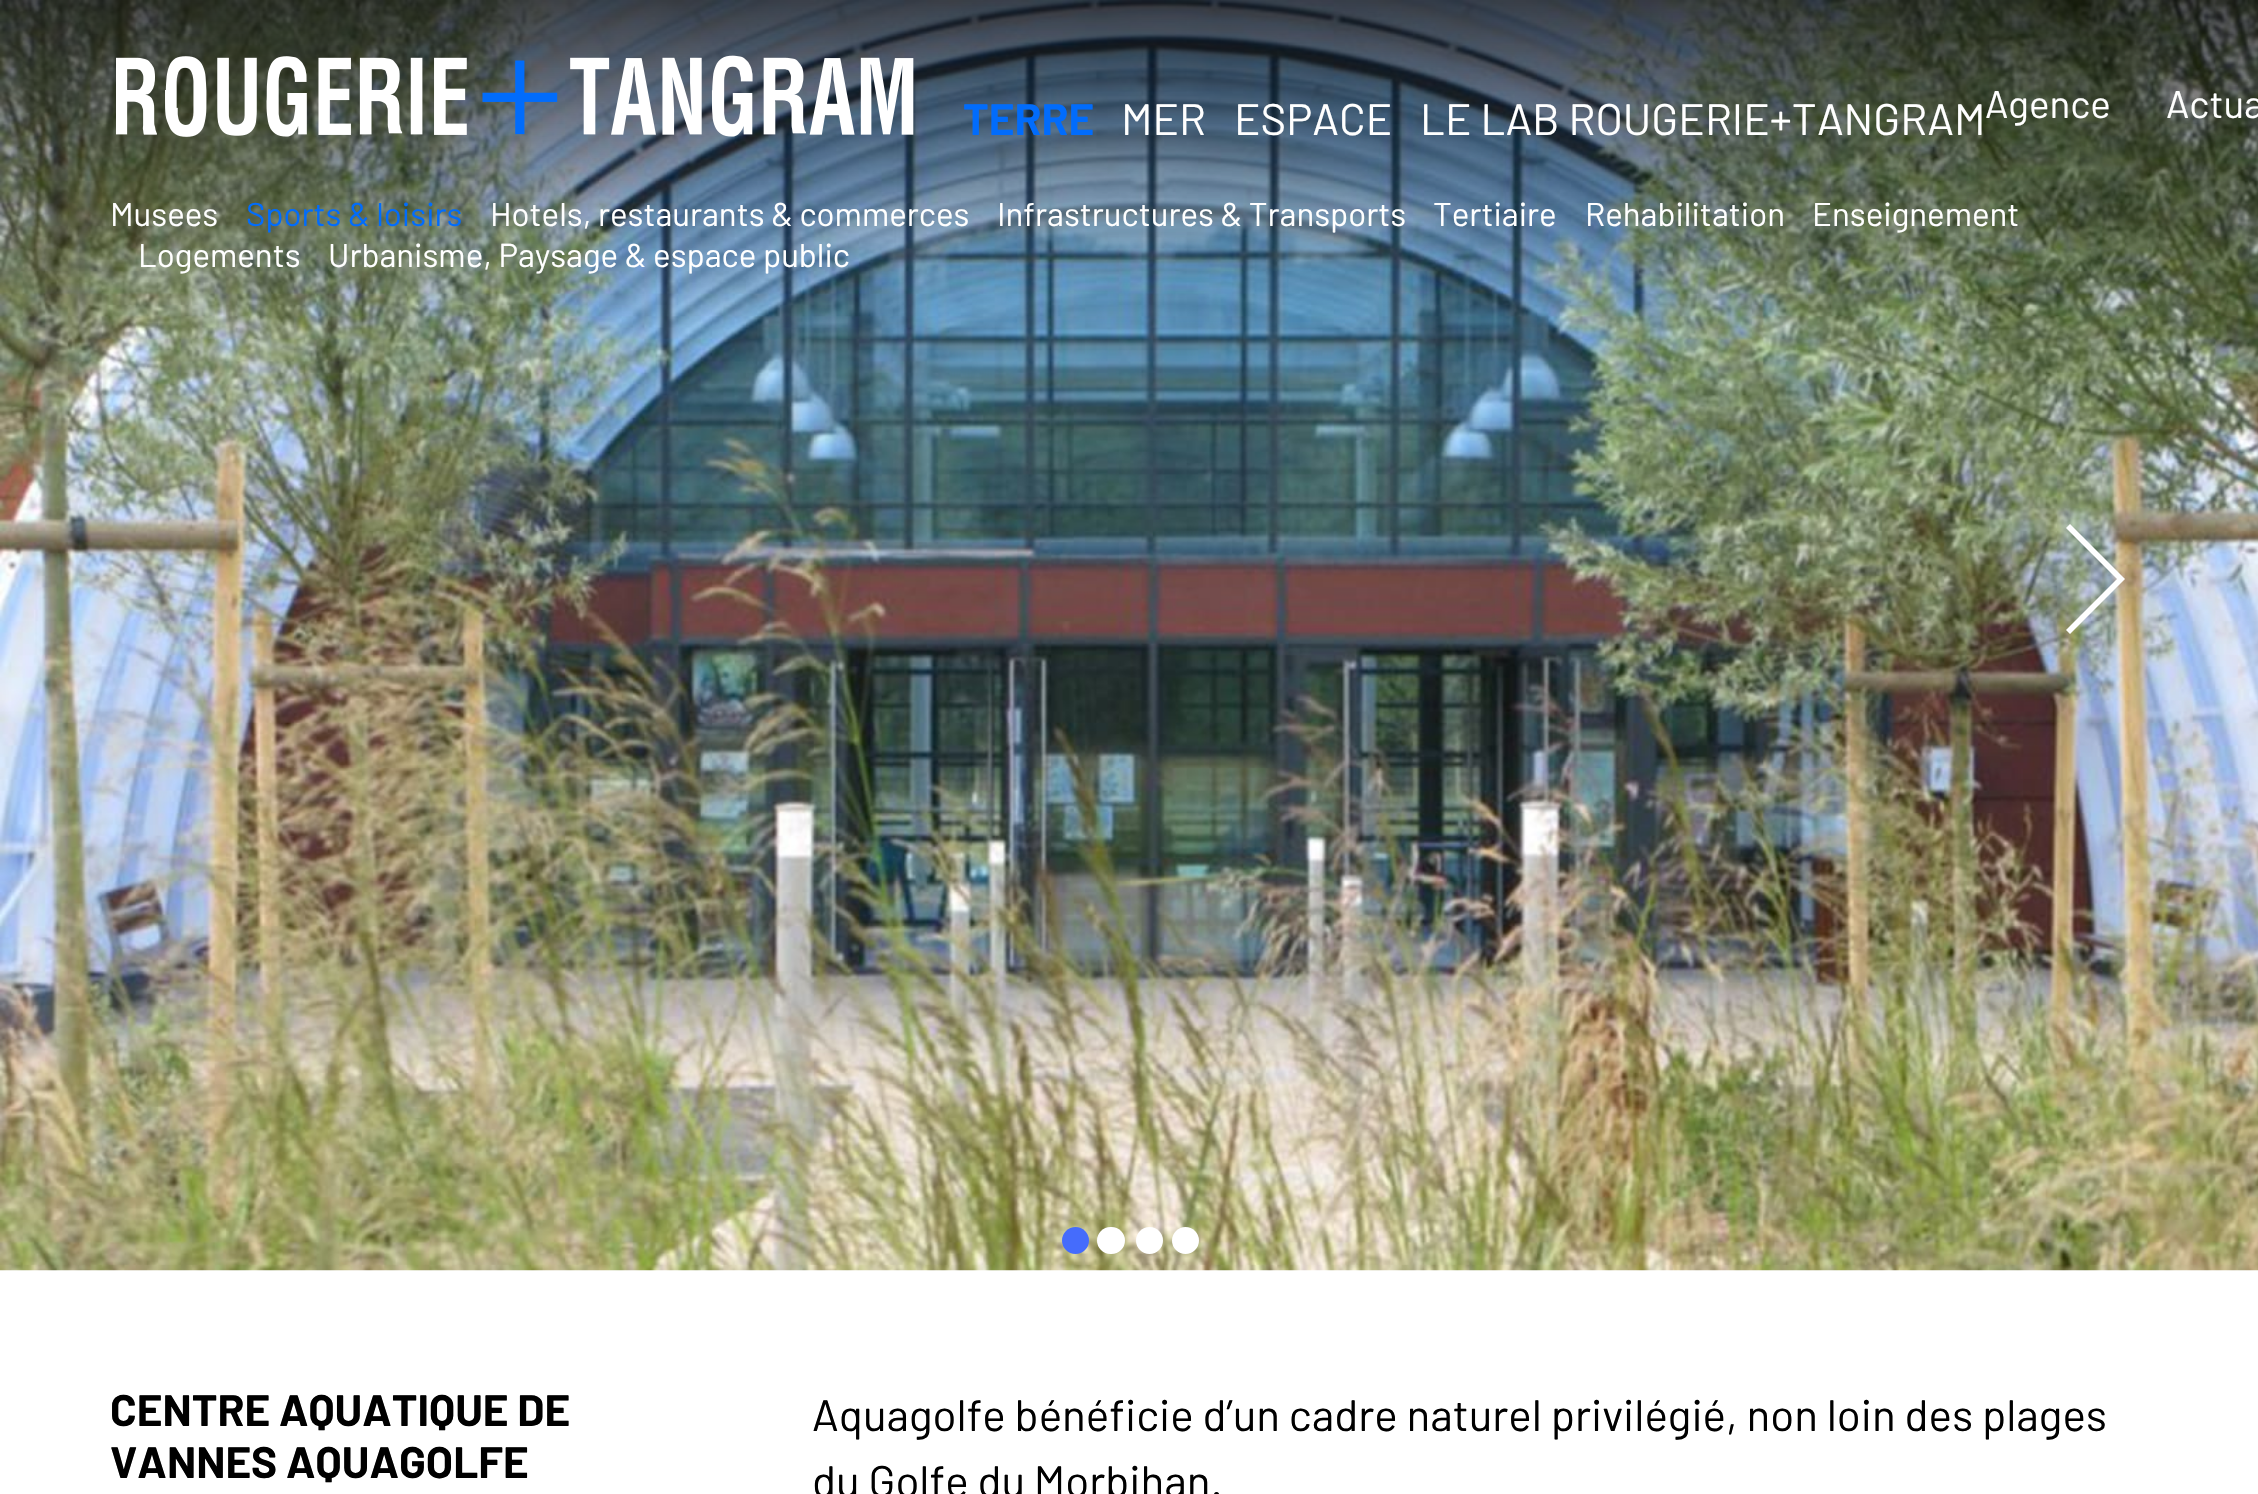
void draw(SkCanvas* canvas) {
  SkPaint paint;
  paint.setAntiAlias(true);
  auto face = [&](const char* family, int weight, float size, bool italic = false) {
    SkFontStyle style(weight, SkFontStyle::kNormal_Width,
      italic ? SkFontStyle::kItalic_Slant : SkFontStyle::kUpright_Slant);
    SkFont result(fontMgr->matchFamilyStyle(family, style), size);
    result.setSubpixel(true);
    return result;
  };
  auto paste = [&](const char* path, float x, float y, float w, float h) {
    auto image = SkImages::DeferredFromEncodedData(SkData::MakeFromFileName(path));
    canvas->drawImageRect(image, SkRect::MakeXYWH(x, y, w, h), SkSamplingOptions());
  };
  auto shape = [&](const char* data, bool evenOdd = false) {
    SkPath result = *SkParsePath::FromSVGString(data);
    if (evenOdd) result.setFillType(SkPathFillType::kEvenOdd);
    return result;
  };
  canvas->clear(0xffffffff);
  paste("img/2.png", 0, 0, 2258, 1271);
  paste("img/1.png", 116, 55, 798, 82);
  paint.setColor(0xffffffff);
  canvas->drawPath(shape("M2121 575L2070 524L2066 528L2117 579L2066 630L2070 634L2125 579Z"), paint);
  paint.setColor(0xff456cfc);
  canvas->drawCircle(1075.5f, 1240.5f, 13.5f, paint);
  paint.setColor(0xffffffff);
  canvas->drawRoundRect(SkRect::MakeXYWH(1097, 1227, 28, 27), 13.5f, 13.5f, paint);
  canvas->drawCircle(1149.5f, 1240.5f, 13.5f, paint);
  canvas->drawCircle(1185.5f, 1240.5f, 13.5f, paint);
  auto f0 = face("Barlow", 700, 44);
  paint.setColor(0xff016cfc);
  canvas->drawString("TERRE", 963, 135, f0, paint);
  auto f1 = face("Barlow", 400, 44);
  paint.setColor(0xffffffff);
  {
    const struct { const char* s; float x, y; } items[] = {
      {"MER", 1121, 135},
      {"ESPACE", 1234, 135},
      {"LE LAB ROUGERIE+TANGRAM", 1420, 135},
    };
    for (auto [s, x, y] : items) {
      canvas->drawString(s, x, y, f1, paint);
    }
  }
  auto f2 = face("Barlow", 400, 38.5f);
  canvas->drawString("Agence", 1985, 118, f2, paint);
  canvas->drawString("Actua", 2166, 118, f2, paint);
  auto f3 = face("Barlow", 400, 33);
  canvas->drawString("Musees", 110, 226, f3, paint);
  paint.setColor(0xff016cfc);
  canvas->drawString("Sports & loisirs", 246, 226, f3, paint);
  paint.setColor(0xffffffff);
  {
    const struct { const char* s; float x, y; } items[] = {
      {"Hotels, restaurants & commerces", 490, 226},
      {"Infrastructures & Transports", 997, 226},
      {"Tertiaire", 1433, 226},
      {"Rehabilitation", 1585, 226},
      {"Enseignement", 1812, 226},
      {"Logements", 138, 267},
      {"Urbanisme, Paysage & espace public", 328, 267},
    };
    for (auto [s, x, y] : items) {
      canvas->drawString(s, x, y, f3, paint);
    }
  }
  paint.setColor(0xff000000);
  canvas->drawString("CENTRE AQUATIQUE DE", 110, 1426, f0, paint);
  canvas->drawString("VANNES AQUAGOLFE", 110, 1478, f0, paint);
  canvas->drawString("Aquagolfe bénéficie d’un cadre naturel privilégié, non loin des plages", 812, 1431, f1, paint);
  canvas->drawString("du Golfe du Morbihan.", 812, 1497, f1, paint);
}
